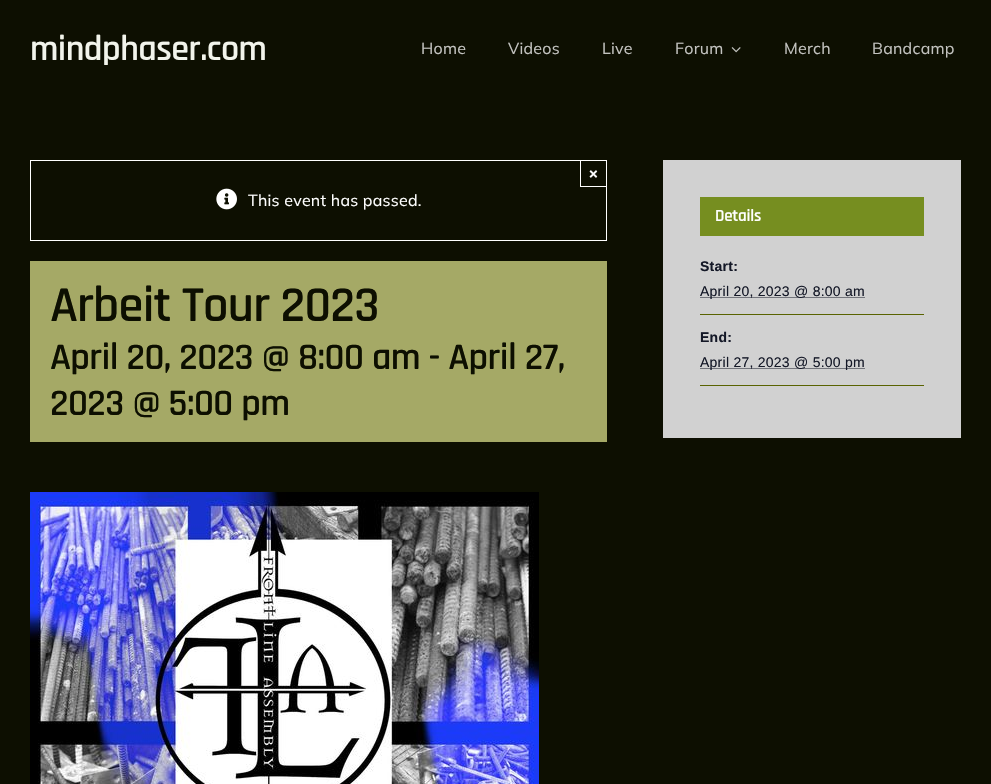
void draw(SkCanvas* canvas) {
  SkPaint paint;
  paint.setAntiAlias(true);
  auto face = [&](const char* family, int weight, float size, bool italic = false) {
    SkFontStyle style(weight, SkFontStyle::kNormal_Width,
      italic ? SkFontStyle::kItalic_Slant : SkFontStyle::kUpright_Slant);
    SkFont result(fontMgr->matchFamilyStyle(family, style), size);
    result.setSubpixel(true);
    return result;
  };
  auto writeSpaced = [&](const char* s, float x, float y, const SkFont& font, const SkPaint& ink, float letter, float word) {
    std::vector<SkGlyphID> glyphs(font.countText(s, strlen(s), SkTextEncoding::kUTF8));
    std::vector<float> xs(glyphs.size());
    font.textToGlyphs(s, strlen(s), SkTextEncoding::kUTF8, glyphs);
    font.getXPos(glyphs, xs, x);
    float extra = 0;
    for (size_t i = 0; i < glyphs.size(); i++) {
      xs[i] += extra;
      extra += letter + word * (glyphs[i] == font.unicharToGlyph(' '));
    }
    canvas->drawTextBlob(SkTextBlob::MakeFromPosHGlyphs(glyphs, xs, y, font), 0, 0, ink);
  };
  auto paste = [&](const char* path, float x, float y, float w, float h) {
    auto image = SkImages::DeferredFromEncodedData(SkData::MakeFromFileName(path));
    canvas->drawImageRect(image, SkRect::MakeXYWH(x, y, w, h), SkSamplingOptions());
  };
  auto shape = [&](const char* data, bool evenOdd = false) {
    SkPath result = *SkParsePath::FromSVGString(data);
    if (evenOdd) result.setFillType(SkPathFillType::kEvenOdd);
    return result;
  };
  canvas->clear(0xff0d0f01);
  paste("img/1.png", 731, 47, 10, 6);
  paint.setStroke(true);
  paint.setStrokeWidth(1);
  paint.setColor(0xffffffff);
  canvas->drawRect(SkRect::MakeXYWH(30.5f, 160.5f, 576, 80), paint);
  canvas->drawRect(SkRect::MakeXYWH(580.5f, 160.5f, 26, 26), paint);
  paste("img/2.png", 216, 188, 21, 22);
  paint.setStroke(false);
  paint.setColor(0xffa5a966);
  canvas->drawRect(SkRect::MakeXYWH(30, 261, 577, 181), paint);
  paste("img/3.png", 30, 492, 509, 292);
  {
    const struct { float x, y, w, h; SkColor color; } items[] = {
      {663, 160, 298, 278, 0xffd1d1d1},
      {700, 197, 224, 39, 0xff768e20},
      {700, 314, 224, 1, 0xff596301},
    };
    for (auto [x, y, w, h, color] : items) {
      paint.setColor(color);
      canvas->drawRect(SkRect::MakeXYWH(x, y, w, h), paint);
    }
  }
  paint.setStroke(true);
  paint.setColor(0xff141827);
  paint.setPathEffect(SkDashPathEffect::Make({{1, 1}}, 0));
  canvas->drawPath(shape("M700.5 297.5H865"), paint);
  paint.setPathEffect(nullptr);
  paint.setStroke(false);
  paint.setColor(0xff596301);
  canvas->drawRect(SkRect::MakeXYWH(700, 385, 224, 1), paint);
  paint.setStroke(true);
  paint.setColor(0xff141827);
  paint.setPathEffect(SkDashPathEffect::Make({{1, 1}}, 0));
  canvas->drawPath(shape("M700.5 368.5H865"), paint);
  paint.setPathEffect(nullptr);
  auto f0 = face("Rajdhani", 600, 36);
  paint.setStroke(false);
  paint.setColor(0xfff2f4eb);
  writeSpaced("mindphaser.com", 30, 60, f0, paint, -0.5f, 0);
  auto f1 = face("Mulish", 400, 16);
  paint.setColor(0xffc3c3c0);
  {
    const struct { const char* s; float x, y; } items[] = {
      {"Home", 421, 54},
      {"Videos", 508, 54},
      {"Live", 602, 54},
      {"Forum", 675, 54},
      {"Merch", 784, 54},
      {"Bandcamp", 872, 54},
    };
    for (auto [s, x, y] : items) {
      writeSpaced(s, x, y, f1, paint, 0.25f, 0);
    }
  }
  auto f2 = face("Liberation Sans", 700, 15);
  paint.setColor(0xffffffff);
  canvas->drawString("×", 589, 179, f2, paint);
  writeSpaced("This event has passed.", 248, 206, f1, paint, 0.25f, 0);
  auto f3 = face("Rajdhani", 600, 50.5f);
  paint.setColor(0xff0d0f01);
  writeSpaced("Arbeit Tour 2023", 50, 321, f3, paint, -0.75f, 0);
  auto f4 = face("Rajdhani", 600, 37.9f);
  writeSpaced("April 20, 2023 @ 8:00 am - April 27,", 50, 369, f4, paint, -0.55f, 0);
  writeSpaced("2023 @ 5:00 pm", 50, 415, f4, paint, -0.55f, 0);
  auto f5 = face("Rajdhani", 600, 17);
  paint.setColor(0xffffffff);
  writeSpaced("Details", 715, 221, f5, paint, -0.25f, 0);
  auto f6 = face("Liberation Sans", 700, 14);
  paint.setColor(0xff141827);
  writeSpaced("Start:", 700, 271, f6, paint, 0.25f, 0);
  auto f7 = face("Liberation Sans", 400, 14);
  writeSpaced("April 20, 2023 @ 8:00 am", 700, 296, f7, paint, 0.25f, 0);
  writeSpaced("End:", 700, 342, f6, paint, 0.25f, 0);
  writeSpaced("April 27, 2023 @ 5:00 pm", 700, 367, f7, paint, 0.25f, 0);
}
